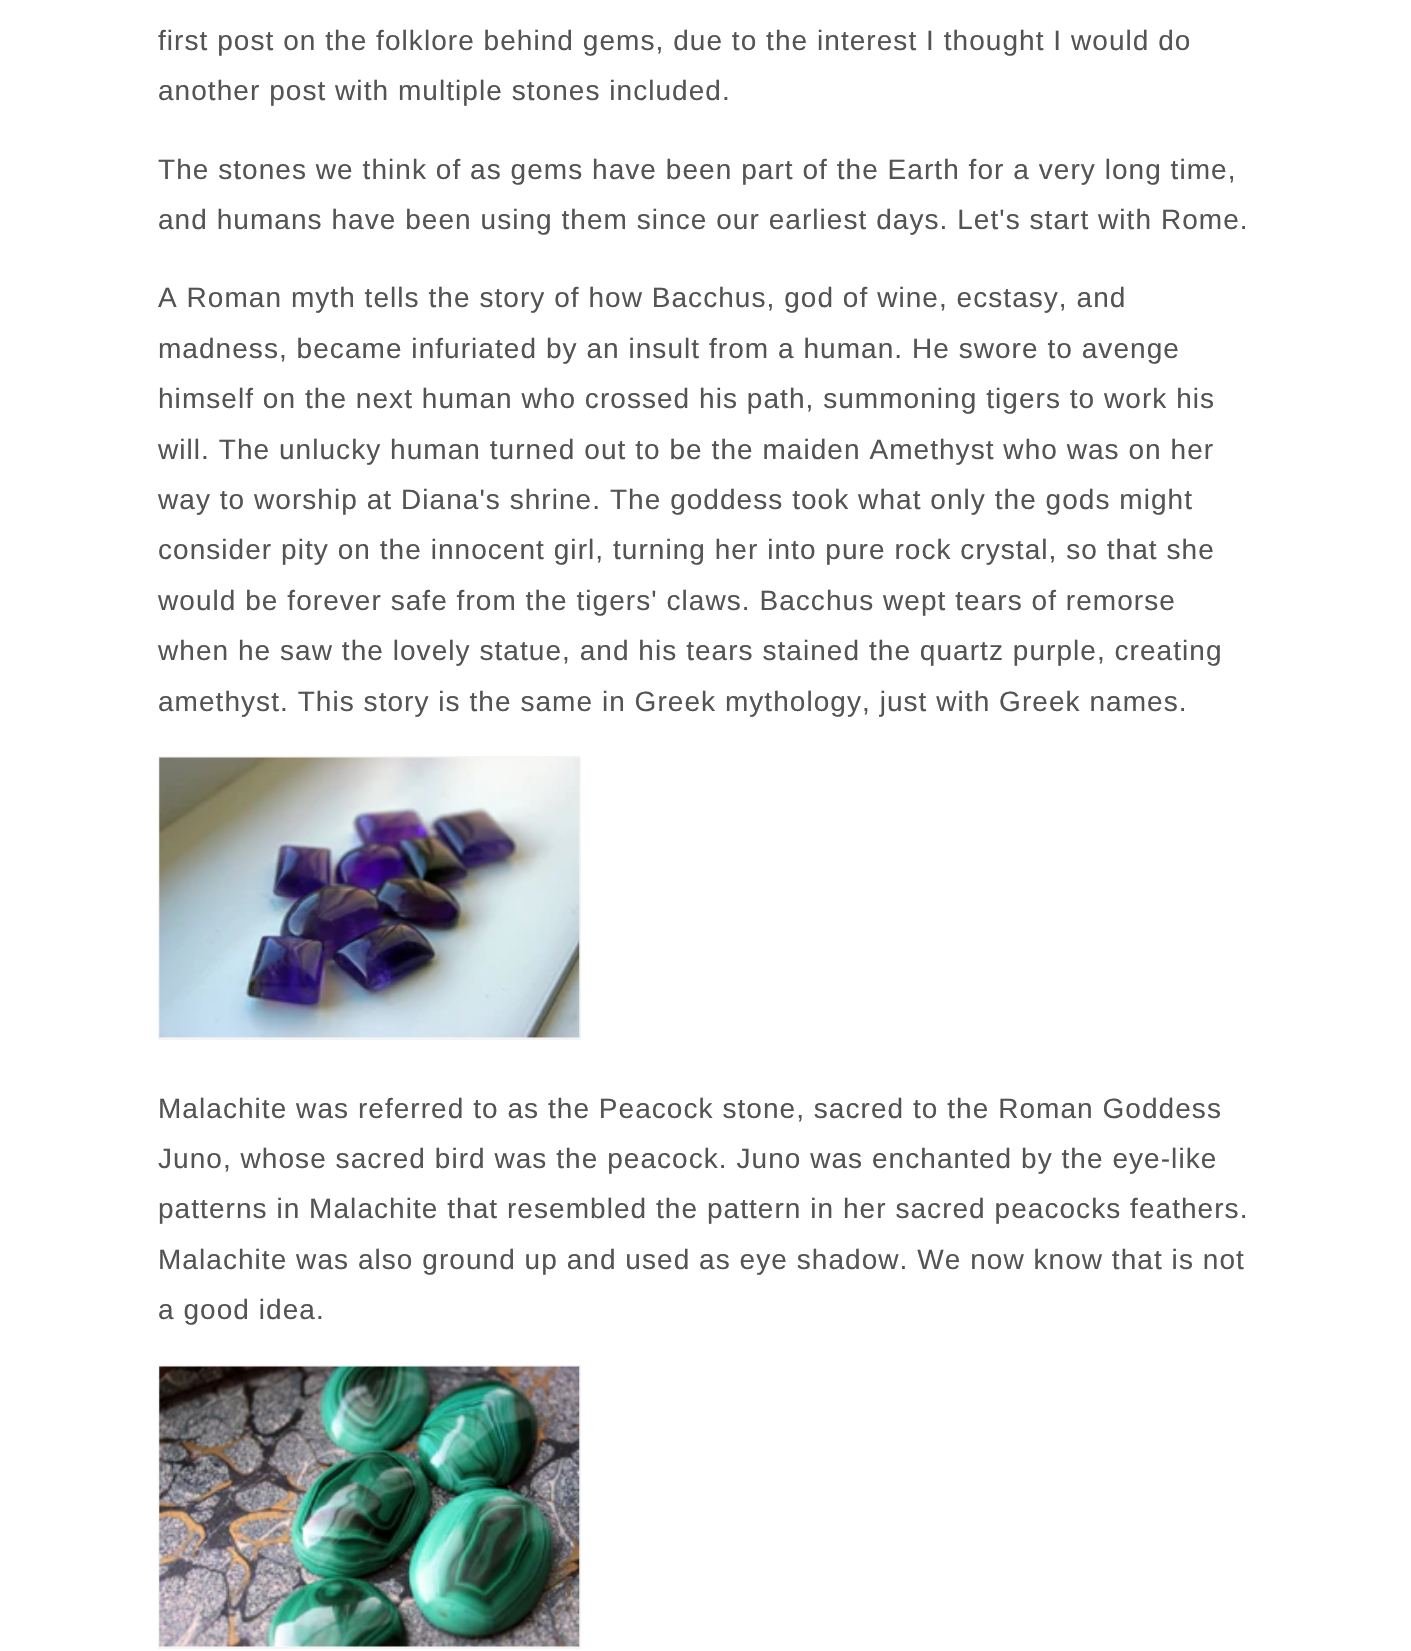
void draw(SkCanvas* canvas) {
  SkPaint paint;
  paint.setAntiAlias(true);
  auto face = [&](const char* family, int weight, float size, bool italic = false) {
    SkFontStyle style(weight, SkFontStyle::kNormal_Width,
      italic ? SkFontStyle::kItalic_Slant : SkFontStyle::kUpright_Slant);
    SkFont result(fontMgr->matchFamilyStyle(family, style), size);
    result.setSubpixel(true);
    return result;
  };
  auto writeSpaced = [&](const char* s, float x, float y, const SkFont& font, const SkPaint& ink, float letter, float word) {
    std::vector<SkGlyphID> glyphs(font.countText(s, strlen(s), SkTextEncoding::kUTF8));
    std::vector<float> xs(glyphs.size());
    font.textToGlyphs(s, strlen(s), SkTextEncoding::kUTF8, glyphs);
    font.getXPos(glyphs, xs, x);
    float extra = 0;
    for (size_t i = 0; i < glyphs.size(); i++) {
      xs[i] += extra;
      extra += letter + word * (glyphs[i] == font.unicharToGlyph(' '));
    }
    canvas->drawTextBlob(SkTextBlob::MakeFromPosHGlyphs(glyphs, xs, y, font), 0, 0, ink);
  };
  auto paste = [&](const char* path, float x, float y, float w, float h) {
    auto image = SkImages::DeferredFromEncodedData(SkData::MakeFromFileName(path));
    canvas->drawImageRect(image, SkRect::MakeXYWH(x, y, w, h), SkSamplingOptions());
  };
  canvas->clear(0xffffffff);
  paint.setStroke(true);
  paint.setStrokeWidth(2);
  paint.setColor(0xfff4f4f4);
  canvas->drawRect(SkRect::MakeXYWH(159, 757, 421, 282), paint);
  paste("img/1.png", 159, 757, 421, 281);
  canvas->drawRect(SkRect::MakeXYWH(159, 1366, 421, 282), paint);
  paste("img/2.png", 159, 1366, 421, 281);
  auto f0 = face("Arimo", 400, 28);
  paint.setStroke(false);
  paint.setColor(0xff555353);
  {
    const struct { const char* s; float x, y; } items[] = {
      {"first post on the folklore behind gems, due to the interest I thought I would do", 158, 50},
      {"another post with multiple stones included.", 158, 100},
      {"The stones we think of as gems have been part of the Earth for a very long time,", 158, 179},
      {"and humans have been using them since our earliest days. Let's start with Rome.", 158, 229},
      {"A Roman myth tells the story of how Bacchus, god of wine, ecstasy, and", 158, 307},
      {"madness, became infuriated by an insult from a human. He swore to avenge", 158, 358},
      {"himself on the next human who crossed his path, summoning tigers to work his", 158, 408},
      {"will. The unlucky human turned out to be the maiden Amethyst who was on her", 158, 459},
      {"way to worship at Diana's shrine. The goddess took what only the gods might", 158, 509},
      {"consider pity on the innocent girl, turning her into pure rock crystal, so that she", 158, 559},
      {"would be forever safe from the tigers' claws. Bacchus wept tears of remorse", 158, 610},
      {"when he saw the lovely statue, and his tears stained the quartz purple, creating", 158, 660},
      {"amethyst. This story is the same in Greek mythology, just with Greek names.", 158, 711},
      {"Malachite was referred to as the Peacock stone, sacred to the Roman Goddess", 158, 1118},
      {"Juno, whose sacred bird was the peacock. Juno was enchanted by the eye-like", 158, 1168},
      {"patterns in Malachite that resembled the pattern in her sacred peacocks feathers.", 158, 1218},
      {"Malachite was also ground up and used as eye shadow. We now know that is not", 158, 1269},
      {"a good idea.", 158, 1319},
    };
    for (auto [s, x, y] : items) {
      writeSpaced(s, x, y, f0, paint, 1.05f, 0);
    }
  }
}
